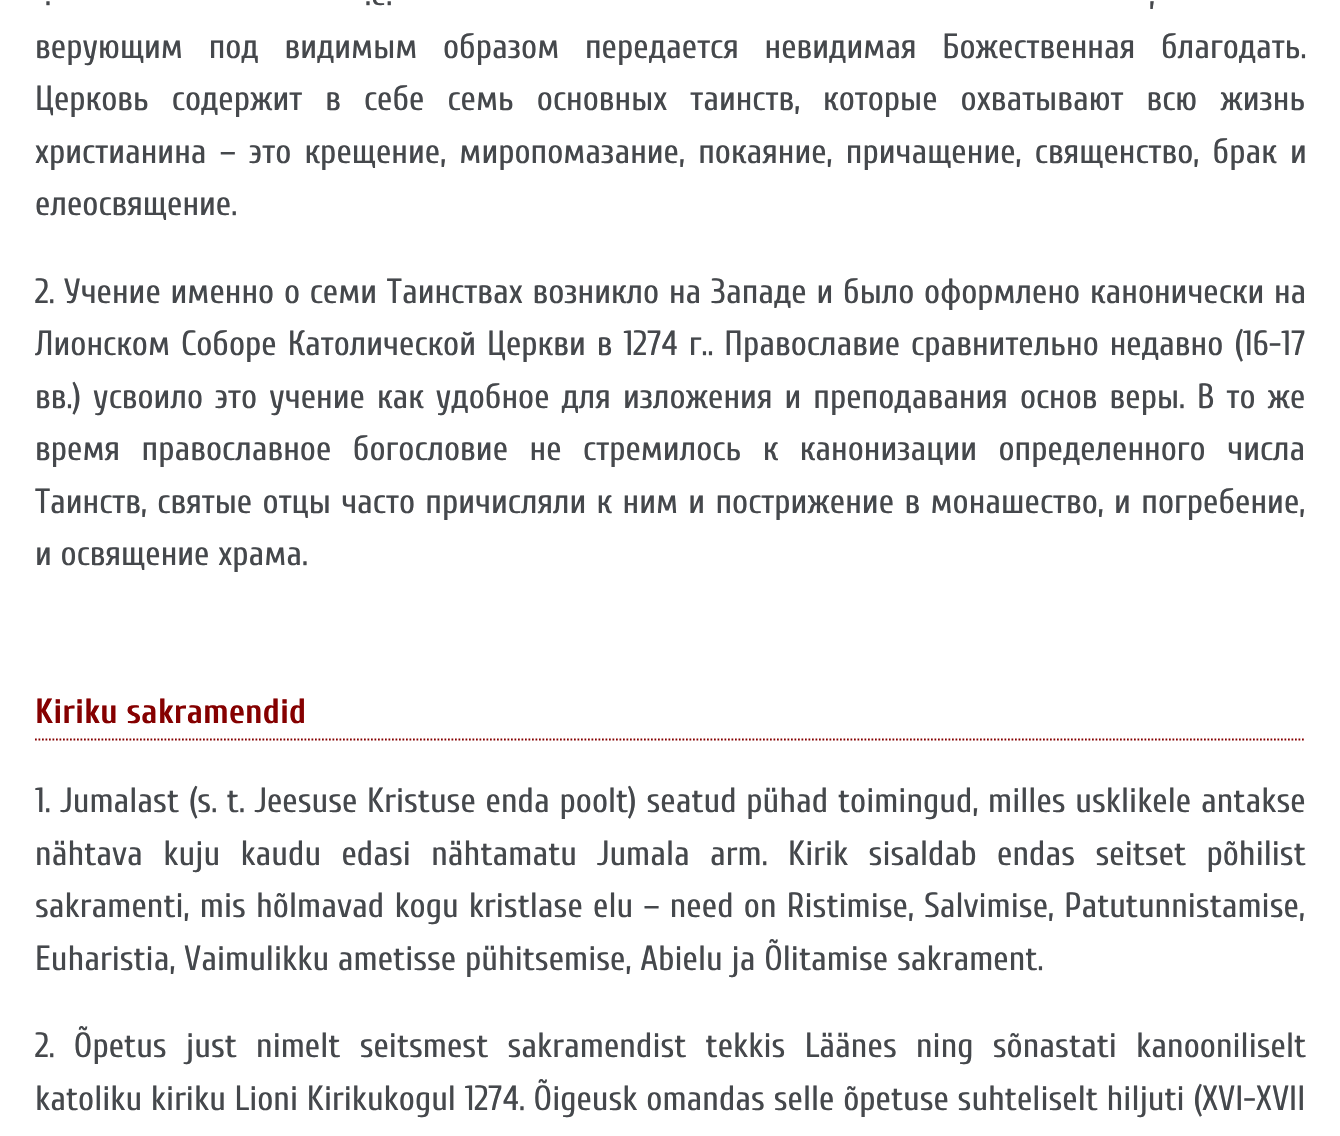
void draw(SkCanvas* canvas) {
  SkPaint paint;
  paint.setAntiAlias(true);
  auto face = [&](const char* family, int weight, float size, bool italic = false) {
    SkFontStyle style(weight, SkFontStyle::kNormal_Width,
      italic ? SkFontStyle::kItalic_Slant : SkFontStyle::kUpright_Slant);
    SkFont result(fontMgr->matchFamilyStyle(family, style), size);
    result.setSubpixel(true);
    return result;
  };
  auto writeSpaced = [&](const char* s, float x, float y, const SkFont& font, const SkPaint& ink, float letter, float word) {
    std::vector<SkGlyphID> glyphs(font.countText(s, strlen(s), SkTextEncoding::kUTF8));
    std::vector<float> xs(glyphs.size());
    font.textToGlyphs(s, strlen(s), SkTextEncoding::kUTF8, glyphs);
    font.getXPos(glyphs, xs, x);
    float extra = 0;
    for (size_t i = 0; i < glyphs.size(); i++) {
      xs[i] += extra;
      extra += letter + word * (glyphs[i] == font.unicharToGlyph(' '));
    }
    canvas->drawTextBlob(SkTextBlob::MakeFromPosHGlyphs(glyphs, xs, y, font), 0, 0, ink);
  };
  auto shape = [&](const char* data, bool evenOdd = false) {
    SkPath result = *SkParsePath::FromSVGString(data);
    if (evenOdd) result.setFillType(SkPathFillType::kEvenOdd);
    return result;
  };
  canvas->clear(0xffffffff);
  paint.setStroke(true);
  paint.setStrokeWidth(1.8f);
  paint.setColor(0xff850000);
  paint.setPathEffect(SkDashPathEffect::Make({{1.75f, 1.75f}}, 0));
  canvas->drawPath(shape("M35 739.5H1305.5"), paint);
  paint.setPathEffect(nullptr);
  auto f0 = face("Cuprum", 400, 35);
  paint.setStroke(false);
  paint.setColor(0xff45484c);
  {
    const struct { const char* s; float x, y; } items[] = {
      {".", 45, 5},
      {".е.", 365, 5},
      {",", 1149, 5},
    };
    for (auto [s, x, y] : items) {
      writeSpaced(s, x, y, f0, paint, 0, 2.25f);
    }
  }
  writeSpaced("верующим под видимым образом передается невидимая Божественная благодать.", 35, 58, f0, paint, 0, 17);
  writeSpaced("Церковь содержит в себе семь основных таинств, которые охватывают всю жизнь", 35, 110, f0, paint, 0, 14.25f);
  writeSpaced("христианина – это крещение, миропомазание, покаяние, причащение, священство, брак и", 35, 163, f0, paint, 0, 4.5f);
  canvas->drawString("елеосвящение.", 35, 215, f0, paint);
  writeSpaced("2. Учение именно о семи Таинствах возникло на Западе и было оформлено канонически на", 35, 303, f0, paint, 0, 1);
  writeSpaced("Лионском Соборе Католической Церкви в 1274 г.. Православие сравнительно недавно (16-17", 35, 355, f0, paint, 0, 2.25f);
  writeSpaced("вв.) усвоило это учение как удобное для изложения и преподавания основ веры. В то же", 35, 408, f0, paint, 0, 3.25f);
  writeSpaced("время православное богословие не стремилось к канонизации определенного числа", 35, 460, f0, paint, 0, 12.75f);
  writeSpaced("Таинств, святые отцы часто причисляли к ним и пострижение в монашество, и погребение,", 35, 513, f0, paint, 0, 1.6f);
  canvas->drawString("и освящение храма.", 35, 565, f0, paint);
  auto f1 = face("Cuprum", 700, 35);
  paint.setColor(0xff850000);
  canvas->drawString("Kiriku sakramendid", 35, 723, f1, paint);
  paint.setColor(0xff45484c);
  writeSpaced("1. Jumalast (s. t. Jeesuse Kristuse enda poolt) seatud pühad toimingud, milles usklikele antakse", 35, 812, f0, paint, 0, 1);
  writeSpaced("nähtava kuju kaudu edasi nähtamatu Jumala arm. Kirik sisaldab endas seitset põhilist", 35, 865, f0, paint, 0, 11.6f);
  writeSpaced("sakramenti, mis hõlmavad kogu kristlase elu – need on Ristimise, Salvimise, Patutunnistamise,", 35, 917, f0, paint, 0, 1.5f);
  canvas->drawString("Euharistia, Vaimulikku ametisse pühitsemise, Abielu ja Õlitamise sakrament.", 35, 970, f0, paint);
  writeSpaced("2. Õpetus just nimelt seitsmest sakramendist tekkis Läänes ning sõnastati kanooniliselt", 35, 1057, f0, paint, 0, 10.5f);
  canvas->drawString("katoliku kiriku Lioni Kirikukogul 1274. Õigeusk omandas selle õpetuse suhteliselt hiljuti (XVI-XVII", 35, 1110, f0, paint);
}
